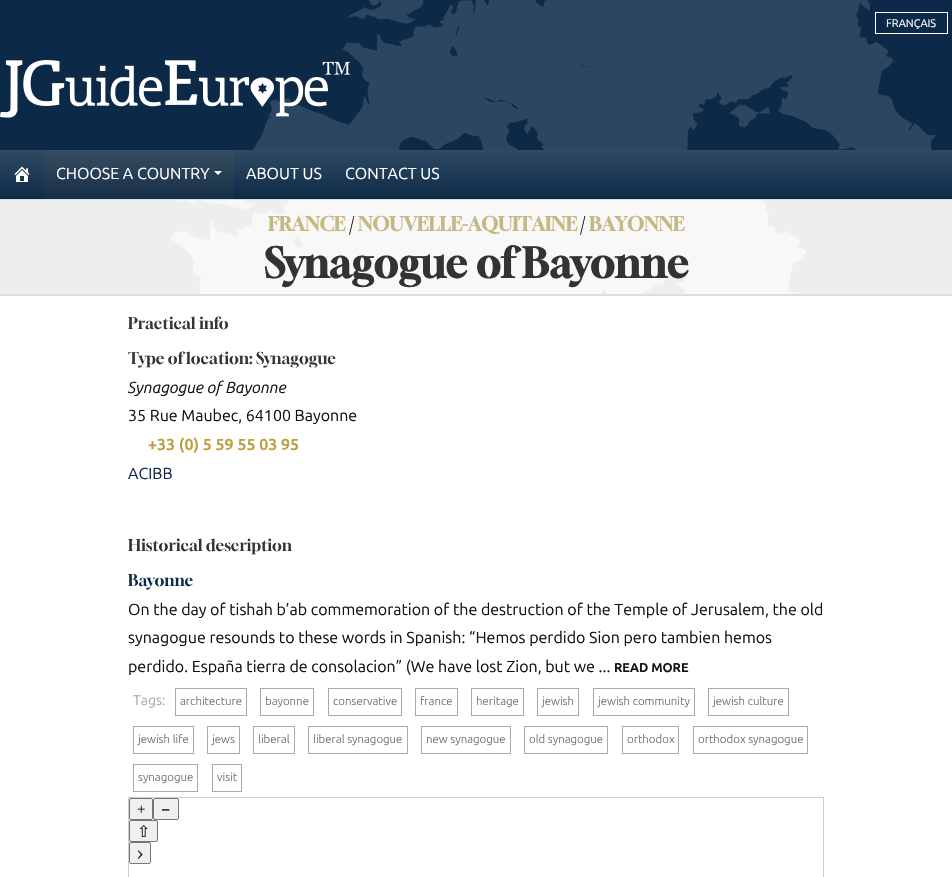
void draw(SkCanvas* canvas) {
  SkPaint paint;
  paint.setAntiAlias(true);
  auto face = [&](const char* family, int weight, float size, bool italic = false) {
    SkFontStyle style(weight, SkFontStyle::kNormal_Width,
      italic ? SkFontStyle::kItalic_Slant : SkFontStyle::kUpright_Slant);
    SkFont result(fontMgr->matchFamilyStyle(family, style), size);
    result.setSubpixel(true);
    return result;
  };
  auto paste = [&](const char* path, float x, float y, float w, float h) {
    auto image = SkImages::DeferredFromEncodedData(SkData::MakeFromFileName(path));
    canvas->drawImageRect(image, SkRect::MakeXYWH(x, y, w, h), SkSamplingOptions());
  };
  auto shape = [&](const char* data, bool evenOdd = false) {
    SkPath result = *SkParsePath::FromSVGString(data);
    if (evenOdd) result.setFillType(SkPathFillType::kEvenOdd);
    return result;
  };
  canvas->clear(0xffffffff);
  paint.setColor(0xff0c2a47);
  canvas->drawRect(SkRect::MakeXYWH(0, 0, 952, 150), paint);
  paste("img/1.png", 252, 0, 685, 150);
  paint.setStroke(true);
  paint.setStrokeWidth(1);
  paint.setColor(0xffffffff);
  canvas->drawRect(SkRect::MakeXYWH(875.5f, 12.5f, 72, 21), paint);
  paste("img/2.png", 0, 60, 350, 58);
  paint.setStroke(false);
  {
    const SkColor colors[] = {0xff304a63, 0xff0c2a47};
    const float stops[] = {0, 1};
    const SkPoint ends[] = {{476, 150}, {476, 199}};
    paint.setShader(SkGradientShader::MakeLinear(ends, colors, stops, 2, SkTileMode::kClamp));
    paint.setAlpha(255);
  }
  canvas->drawRect(SkRect::MakeXYWH(0, 150, 952, 49), paint);
  paste("img/3.png", 14, 166, 16, 16);
  {
    const SkColor colors[] = {0xff384e62, 0xff152f46};
    const float stops[] = {0, 1};
    const SkPoint ends[] = {{139, 150}, {139, 199}};
    paint.setShader(SkGradientShader::MakeLinear(ends, colors, stops, 2, SkTileMode::kClamp));
    paint.setAlpha(255);
  }
  canvas->drawRect(SkRect::MakeXYWH(44, 150, 190, 49), paint);
  paint.setShader(nullptr);
  paint.setColor(0xffffffff);
  canvas->drawPath(shape("M214 171H222L218 175Z"), paint);
  paint.setColor(0xffeeeeee);
  canvas->drawRect(SkRect::MakeXYWH(0, 200, 952, 94), paint);
  paste("img/4.png", 170, 200, 636, 94);
  paint.setColor(0xffdddddd);
  canvas->drawRect(SkRect::MakeXYWH(0, 199, 952, 1), paint);
  canvas->drawRect(SkRect::MakeXYWH(0, 294, 952, 2), paint);
  paint.setStroke(true);
  paint.setColor(0xffaaaaaa);
  canvas->drawRect(SkRect::MakeXYWH(175.5f, 688.5f, 71, 27), paint);
  canvas->drawRect(SkRect::MakeXYWH(260.5f, 688.5f, 53, 27), paint);
  canvas->drawRect(SkRect::MakeXYWH(328.5f, 688.5f, 73, 27), paint);
  canvas->drawRect(SkRect::MakeXYWH(415.5f, 688.5f, 42, 27), paint);
  canvas->drawRect(SkRect::MakeXYWH(471.5f, 688.5f, 52, 27), paint);
  canvas->drawRect(SkRect::MakeXYWH(537.5f, 688.5f, 41, 27), paint);
  canvas->drawRect(SkRect::MakeXYWH(593.5f, 688.5f, 101, 27), paint);
  canvas->drawRect(SkRect::MakeXYWH(708.5f, 688.5f, 80, 27), paint);
  canvas->drawRect(SkRect::MakeXYWH(133.5f, 726.5f, 60, 27), paint);
  canvas->drawRect(SkRect::MakeXYWH(207.5f, 726.5f, 32, 27), paint);
  canvas->drawRect(SkRect::MakeXYWH(253.5f, 726.5f, 41, 27), paint);
  canvas->drawRect(SkRect::MakeXYWH(308.5f, 726.5f, 99, 27), paint);
  canvas->drawRect(SkRect::MakeXYWH(421.5f, 726.5f, 89, 27), paint);
  canvas->drawRect(SkRect::MakeXYWH(524.5f, 726.5f, 83, 27), paint);
  canvas->drawRect(SkRect::MakeXYWH(622.5f, 726.5f, 56, 27), paint);
  canvas->drawRect(SkRect::MakeXYWH(693.5f, 726.5f, 114, 27), paint);
  canvas->drawRect(SkRect::MakeXYWH(133.5f, 764.5f, 64, 27), paint);
  canvas->drawRect(SkRect::MakeXYWH(212.5f, 764.5f, 29, 27), paint);
  paint.setColor(0xffcccccc);
  canvas->drawRect(SkRect::MakeXYWH(128.5f, 797.5f, 695, 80), paint);
  paint.setStroke(false);
  paint.setColor(0xffefefef);
  canvas->drawRoundRect(SkRect::MakeXYWH(129.5f, 798.5f, 23, 21), 1.5f, 1.5f, paint);
  paint.setStroke(true);
  paint.setColor(0xff767676);
  canvas->drawRoundRect(SkRect::MakeXYWH(129.5f, 798.5f, 23, 21), 1.5f, 1.5f, paint);
  paint.setStroke(false);
  paint.setColor(0xffefefef);
  canvas->drawRoundRect(SkRect::MakeXYWH(153.5f, 798.5f, 25, 21), 1.5f, 1.5f, paint);
  paint.setStroke(true);
  paint.setColor(0xff767676);
  canvas->drawRoundRect(SkRect::MakeXYWH(153.5f, 798.5f, 25, 21), 1.5f, 1.5f, paint);
  paint.setStroke(false);
  paint.setColor(0xffefefef);
  canvas->drawRoundRect(SkRect::MakeXYWH(129.5f, 820.5f, 28, 21), 1.5f, 1.5f, paint);
  paint.setStroke(true);
  paint.setColor(0xff767676);
  canvas->drawRoundRect(SkRect::MakeXYWH(129.5f, 820.5f, 28, 21), 1.5f, 1.5f, paint);
  paint.setStroke(false);
  paint.setColor(0xffefefef);
  canvas->drawRoundRect(SkRect::MakeXYWH(129.5f, 842.5f, 21, 21), 1.5f, 1.5f, paint);
  paint.setStroke(true);
  paint.setColor(0xff767676);
  canvas->drawRoundRect(SkRect::MakeXYWH(129.5f, 842.5f, 21, 21), 1.5f, 1.5f, paint);
  auto f0 = face("Ubuntu Sans", 400, 11);
  paint.setStroke(false);
  paint.setColor(0xffffffff);
  canvas->drawString("FRANÇAIS", 886, 27, f0, paint);
  auto f1 = face("Ubuntu Sans", 400, 16);
  {
    const struct { const char* s; float x, y; } items[] = {
      {"CHOOSE A COUNTRY", 56, 179},
      {"ABOUT US", 246, 179},
      {"CONTACT US", 345, 179},
    };
    for (auto [s, x, y] : items) {
      canvas->drawString(s, x, y, f1, paint);
    }
  }
  auto f2 = face("Gloock", 700, 19.25f);
  paint.setColor(0xffc3b982);
  canvas->drawString("FRANCE", 268, 231, f2, paint);
  paint.setColor(0xff111111);
  canvas->drawString("/", 349, 231, f2, paint);
  paint.setColor(0xffc3b982);
  canvas->drawString("NOUVELLE-AQUITAINE", 358, 231, f2, paint);
  paint.setColor(0xff111111);
  canvas->drawString("/", 580, 231, f2, paint);
  paint.setColor(0xffc3b982);
  canvas->drawString("BAYONNE", 589, 231, f2, paint);
  auto f3 = face("Gloock", 700, 40.75f);
  paint.setColor(0xff333333);
  canvas->drawString("Synagogue of Bayonne", 264, 278, f3, paint);
  auto f4 = face("Gloock", 400, 16);
  canvas->drawString("Practical info", 128, 329, f4, paint);
  canvas->drawString("Type of location: Synagogue", 128, 364, f4, paint);
  auto f5 = face("Ubuntu Sans", 400, 16, true);
  paint.setColor(0xff111111);
  canvas->drawString("Synagogue of Bayonne", 128, 393, f5, paint);
  canvas->drawString("35 Rue Maubec, 64100 Bayonne", 128, 421, f1, paint);
  auto f6 = face("Ubuntu Sans", 700, 16);
  paint.setColor(0xffbe9e3f);
  canvas->drawString("+33 (0) 5 59 55 03 95", 148, 450, f6, paint);
  paint.setColor(0xff0c2a47);
  canvas->drawString("ACIBB", 128, 479, f1, paint);
  paint.setColor(0xff333333);
  canvas->drawString("Historical description", 128, 551, f4, paint);
  paint.setColor(0xff0c2a47);
  canvas->drawString("Bayonne", 128, 586, f4, paint);
  paint.setColor(0xff111111);
  {
    const struct { const char* s; float x, y; } items[] = {
      {"On the day of tishah b’ab commemoration of the destruction of the Temple of Jerusalem, the old", 128, 615},
      {"synagogue resounds to these words in Spanish: “Hemos perdido Sion pero tambien hemos", 128, 643},
      {"perdido. España tierra de consolacion” (We have lost Zion, but we ...", 128, 672},
    };
    for (auto [s, x, y] : items) {
      canvas->drawString(s, x, y, f1, paint);
    }
  }
  auto f7 = face("Ubuntu Sans", 700, 12.75f);
  canvas->drawString("READ MORE", 614, 672, f7, paint);
  auto f8 = face("Ubuntu Sans", 400, 14);
  paint.setColor(0xffaaaaaa);
  canvas->drawString("Tags:", 133, 705, f8, paint);
  auto f9 = face("Ubuntu Sans", 300, 11.5f);
  paint.setColor(0xff666666);
  {
    const struct { const char* s; float x, y; } items[] = {
      {"architecture", 180, 705},
      {"bayonne", 265, 705},
      {"conservative", 333, 705},
      {"france", 420, 705},
      {"heritage", 476, 705},
      {"jewish", 542, 705},
      {"jewish community", 598, 705},
      {"jewish culture", 713, 705},
      {"jewish life", 138, 743},
      {"jews", 212, 743},
      {"liberal", 258, 743},
      {"liberal synagogue", 313, 743},
      {"new synagogue", 426, 743},
      {"old synagogue", 529, 743},
      {"orthodox", 627, 743},
      {"orthodox synagogue", 698, 743},
      {"synagogue", 138, 781},
      {"visit", 217, 781},
    };
    for (auto [s, x, y] : items) {
      canvas->drawString(s, x, y, f9, paint);
    }
  }
  auto f10 = face("Lora", 400, 16);
  paint.setColor(0xff111111);
  canvas->drawString("+", 137, 815, f10, paint);
  canvas->drawString("–", 161, 815, f10, paint);
  auto f11 = face("DejaVu Sans", 400, 16);
  canvas->drawString("⇧", 137, 837, f11, paint);
  canvas->drawString("›", 137, 859, f10, paint);
}
